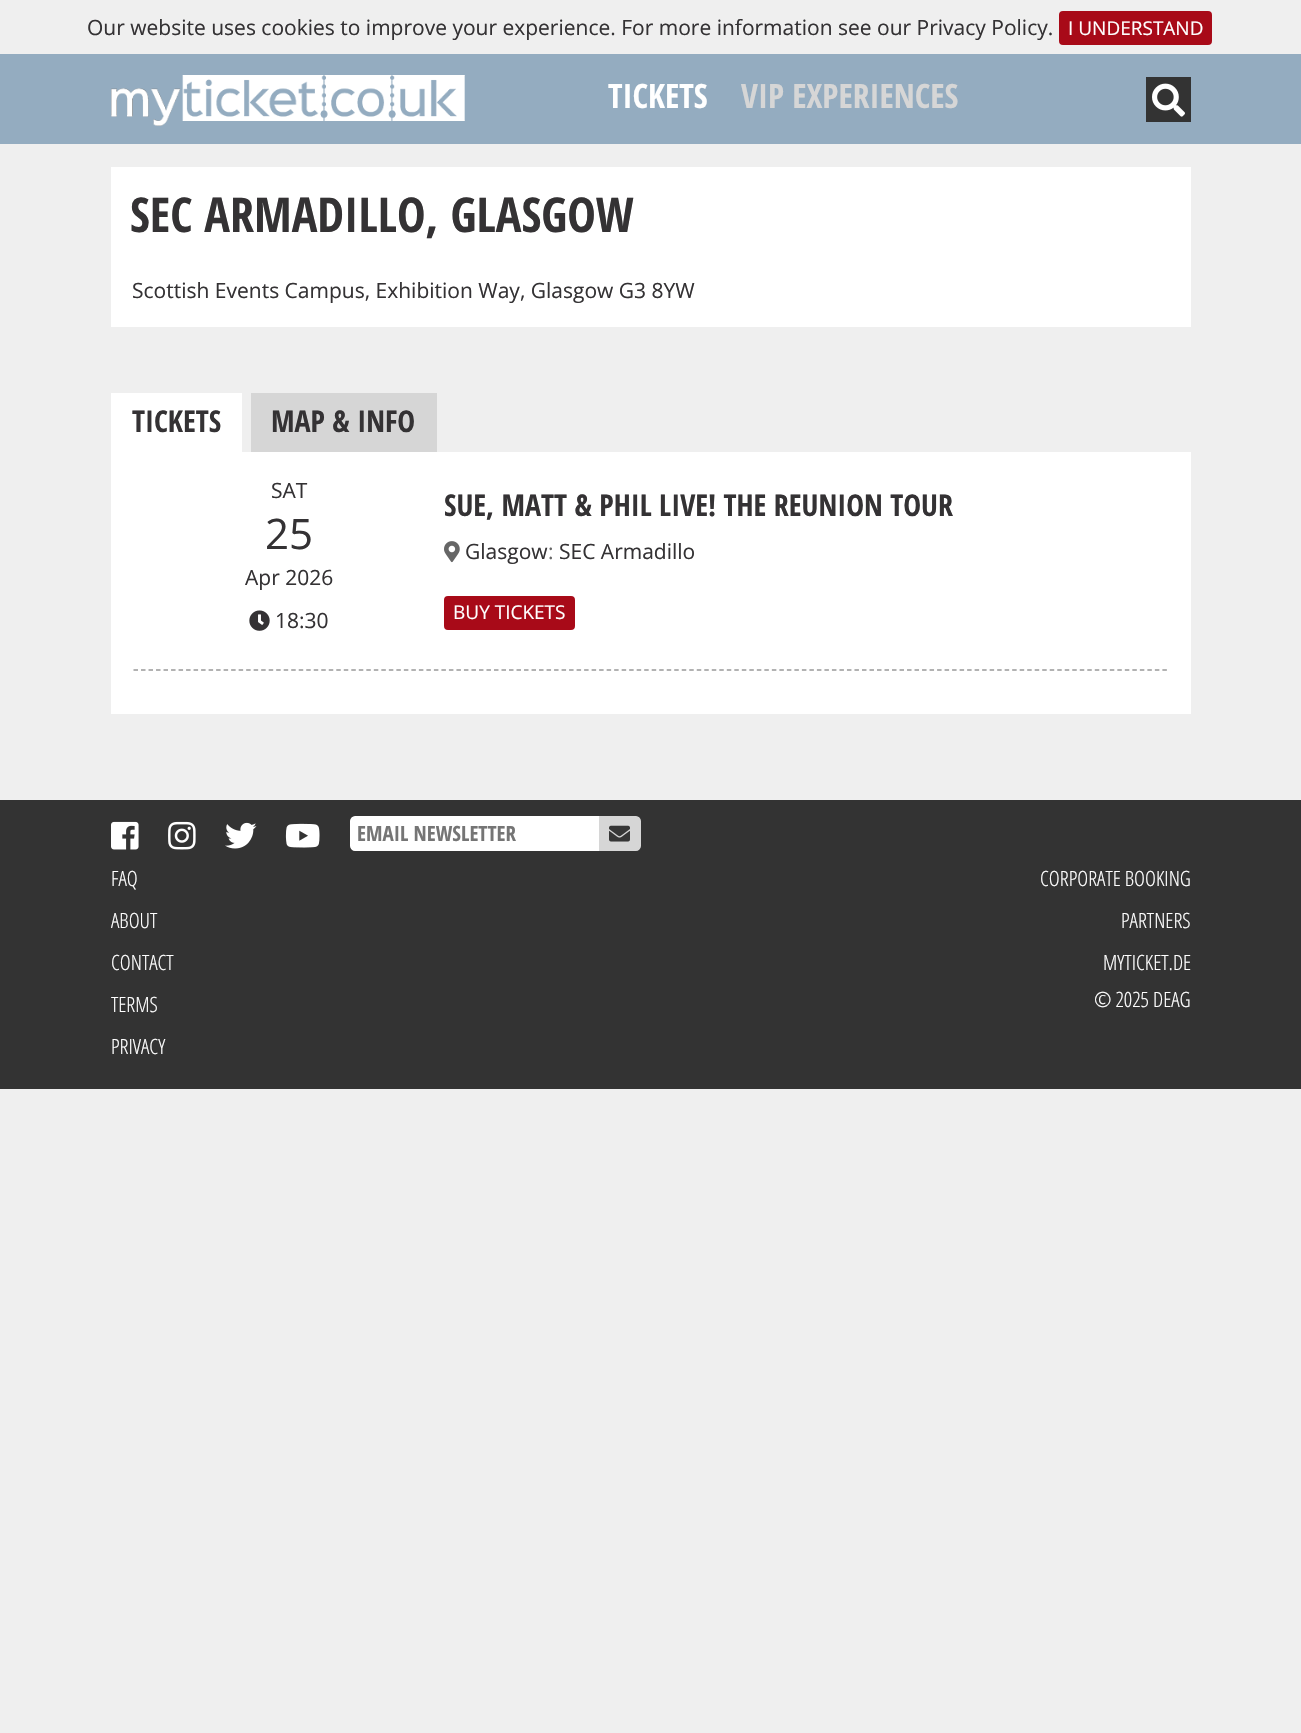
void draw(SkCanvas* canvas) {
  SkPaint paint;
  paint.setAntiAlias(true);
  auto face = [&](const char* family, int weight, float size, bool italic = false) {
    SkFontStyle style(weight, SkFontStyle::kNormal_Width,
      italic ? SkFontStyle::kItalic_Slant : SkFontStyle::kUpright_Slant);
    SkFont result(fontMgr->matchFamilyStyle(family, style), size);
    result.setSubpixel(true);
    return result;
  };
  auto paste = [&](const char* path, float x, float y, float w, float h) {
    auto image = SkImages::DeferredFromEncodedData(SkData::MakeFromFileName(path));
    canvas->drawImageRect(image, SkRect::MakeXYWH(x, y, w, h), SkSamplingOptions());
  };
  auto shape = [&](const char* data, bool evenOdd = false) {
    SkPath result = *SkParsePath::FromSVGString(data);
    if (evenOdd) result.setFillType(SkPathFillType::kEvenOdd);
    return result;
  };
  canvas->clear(0xffefefef);
  paint.setColor(0xffa80a18);
  canvas->drawRoundRect(SkRect::MakeXYWH(1060, 12, 151, 32), 3, 3, paint);
  paint.setStroke(true);
  paint.setStrokeWidth(2);
  canvas->drawRoundRect(SkRect::MakeXYWH(1060, 12, 151, 32), 3, 3, paint);
  paint.setStroke(false);
  paint.setColor(0xff94acc0);
  canvas->drawRect(SkRect::MakeXYWH(0, 54, 1301, 90), paint);
  paste("img/1.png", 111, 75, 354, 51);
  paint.setColor(0xff333333);
  canvas->drawRect(SkRect::MakeXYWH(1146, 77, 45, 45), paint);
  paste("img/2.png", 1152, 83, 33, 34);
  {
    const struct { float x, y, w, h; SkColor color; } items[] = {
      {111, 167, 1080, 160, 0xffffffff},
      {111, 393, 131, 59, 0xffffffff},
      {251, 393, 186, 59, 0xffd6d6d6},
      {111, 452, 1080, 262, 0xffffffff},
    };
    for (auto [x, y, w, h, color] : items) {
      paint.setColor(color);
      canvas->drawRect(SkRect::MakeXYWH(x, y, w, h), paint);
    }
  }
  paint.setStroke(true);
  paint.setStrokeWidth(1.5f);
  paint.setColor(0xff999999);
  paint.setPathEffect(SkDashPathEffect::Make({{4.5f, 3.01f}}, 0));
  canvas->drawPath(shape("M133.5 670H1168.5"), paint);
  paint.setPathEffect(nullptr);
  paste("img/3.png", 249, 610, 21, 21);
  paste("img/4.png", 444, 541, 16, 22);
  paint.setStroke(false);
  paint.setColor(0xffa80a18);
  canvas->drawRoundRect(SkRect::MakeXYWH(445, 597, 129, 32), 3, 3, paint);
  paint.setStroke(true);
  paint.setStrokeWidth(2);
  canvas->drawRoundRect(SkRect::MakeXYWH(445, 597, 129, 32), 3, 3, paint);
  paint.setStroke(false);
  paint.setColor(0xff333333);
  canvas->drawRect(SkRect::MakeXYWH(0, 800, 1301, 289), paint);
  paste("img/5.png", 111, 821, 28, 29);
  paste("img/6.png", 168, 821, 28, 29);
  paste("img/7.png", 225, 822, 32, 27);
  paste("img/8.png", 285, 823, 35, 25);
  paint.setColor(0xffffffff);
  canvas->drawPath(shape("M355 817H598V850H355C353 850 351 848 351 846V821C351 819 353 817 355 817Z"), paint);
  paint.setStroke(true);
  canvas->drawPath(shape("M355 817H598V850H355C353 850 351 848 351 846V821C351 819 353 817 355 817Z"), paint);
  paint.setStroke(false);
  paint.setColor(0xffd6d6d6);
  canvas->drawPath(shape("M600 817H636C638 817 640 819 640 821V846C640 848 638 850 636 850H600Z"), paint);
  paint.setStroke(true);
  canvas->drawPath(shape("M600 817H636C638 817 640 819 640 821V846C640 848 638 850 636 850H600Z"), paint);
  paste("img/9.png", 609, 825, 21, 17);
  auto f0 = face("Open Sans", 400, 21);
  paint.setStroke(false);
  paint.setColor(0xff343234);
  canvas->drawString("Our website uses cookies to improve your experience. For more information see our Privacy Policy.", 87, 35, f0, paint);
  auto f1 = face("Open Sans", 400, 19);
  paint.setColor(0xffffffff);
  canvas->drawString("I UNDERSTAND", 1068, 35, f1, paint);
  auto f2 = face("Open Sans Condensed", 700, 33.5f);
  canvas->drawString("TICKETS", 608, 108, f2, paint);
  paint.setColor(0xffd6d6d6);
  canvas->drawString("VIP EXPERIENCES", 741, 108, f2, paint);
  auto f3 = face("Open Sans Condensed", 700, 48);
  paint.setColor(0xff343234);
  canvas->drawString("SEC ARMADILLO, GLASGOW", 130, 232, f3, paint);
  canvas->drawString("Scottish Events Campus, Exhibition Way, Glasgow G3 8YW", 132, 298, f0, paint);
  auto f4 = face("Open Sans Condensed", 700, 30);
  canvas->drawString("TICKETS", 132, 432, f4, paint);
  canvas->drawString("MAP & INFO", 271, 432, f4, paint);
  canvas->drawString("SAT", 271, 498, f0, paint);
  auto f5 = face("Open Sans", 400, 42);
  canvas->drawString("25", 265, 549, f5, paint);
  canvas->drawString("Apr 2026", 245, 585, f0, paint);
  canvas->drawString("18:30", 275, 628, f0, paint);
  canvas->drawString("SUE, MATT & PHIL LIVE! THE REUNION TOUR", 444, 516, f4, paint);
  canvas->drawString("Glasgow", 465, 559, f0, paint);
  paint.setColor(0xff666666);
  canvas->drawString(":", 548, 559, f0, paint);
  paint.setColor(0xff343234);
  canvas->drawString("SEC Armadillo", 559, 559, f0, paint);
  paint.setColor(0xffffffff);
  canvas->drawString("BUY TICKETS", 453, 619, f1, paint);
  auto f6 = face("Open Sans Condensed", 700, 21);
  paint.setColor(0xff757575);
  canvas->drawString("EMAIL NEWSLETTER", 357, 841, f6, paint);
  auto f7 = face("Open Sans Condensed", 300, 21);
  paint.setColor(0xffffffff);
  {
    const struct { const char* s; float x, y; } items[] = {
      {"FAQ", 111, 886},
      {"ABOUT", 111, 928},
      {"CONTACT", 111, 970},
      {"TERMS", 111, 1012},
      {"PRIVACY", 111, 1054},
      {"CORPORATE BOOKING", 1040, 886},
      {"PARTNERS", 1121, 928},
      {"MYTICKET.DE", 1103, 970},
      {"© 2025 DEAG", 1094, 1007},
    };
    for (auto [s, x, y] : items) {
      canvas->drawString(s, x, y, f7, paint);
    }
  }
}
